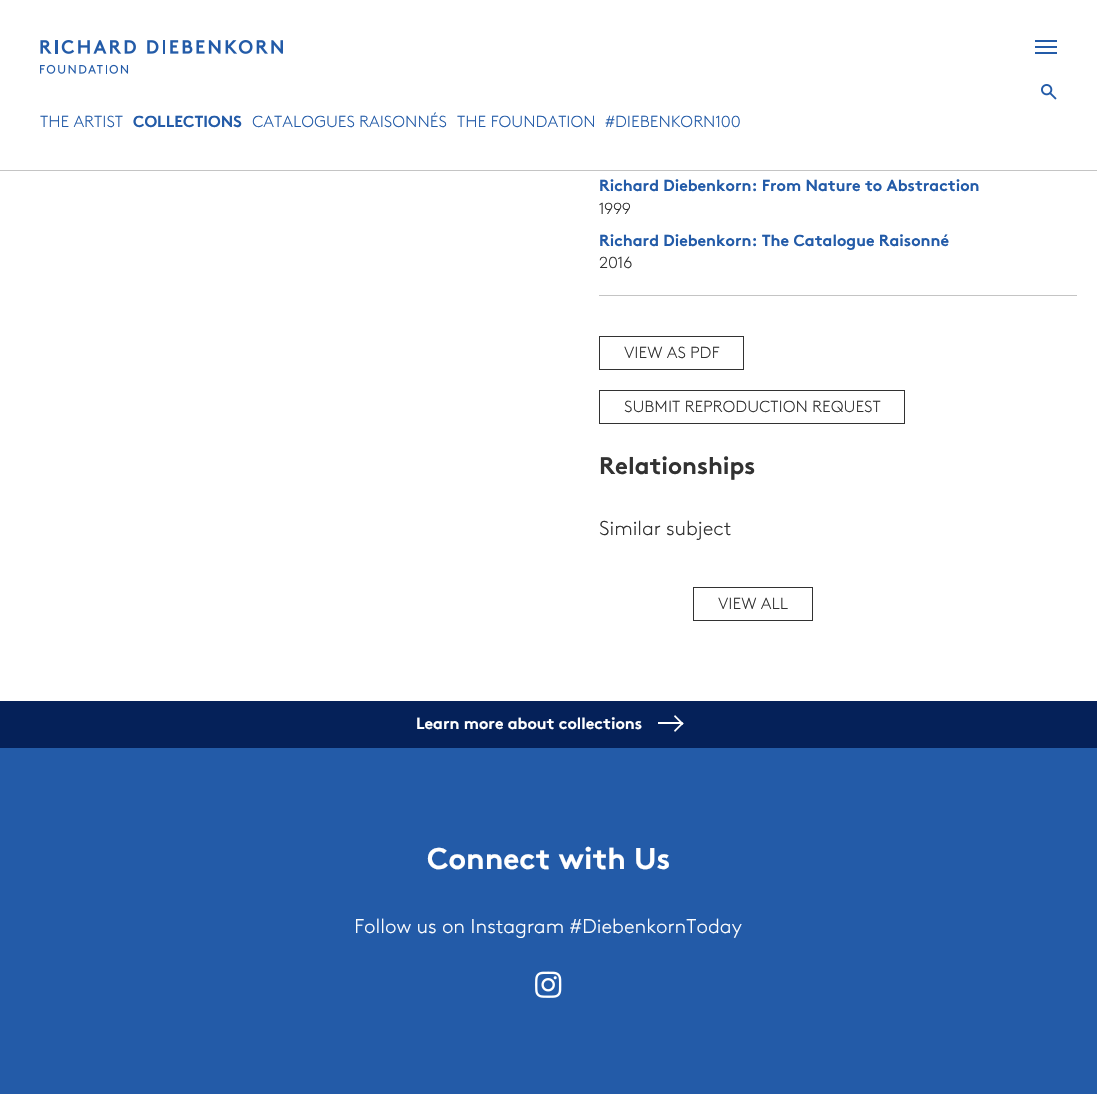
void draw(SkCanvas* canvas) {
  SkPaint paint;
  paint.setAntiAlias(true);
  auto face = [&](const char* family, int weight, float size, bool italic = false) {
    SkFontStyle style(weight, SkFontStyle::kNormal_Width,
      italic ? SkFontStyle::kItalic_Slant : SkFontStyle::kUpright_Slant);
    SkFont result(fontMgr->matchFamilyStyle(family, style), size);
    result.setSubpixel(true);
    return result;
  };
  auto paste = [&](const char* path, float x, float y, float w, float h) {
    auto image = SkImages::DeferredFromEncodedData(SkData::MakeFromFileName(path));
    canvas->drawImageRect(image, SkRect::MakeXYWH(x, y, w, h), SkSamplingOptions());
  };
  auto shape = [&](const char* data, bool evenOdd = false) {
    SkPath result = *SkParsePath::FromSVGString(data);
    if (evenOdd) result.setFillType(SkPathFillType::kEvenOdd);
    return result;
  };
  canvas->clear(0xffffffff);
  {
    const struct { float x, y, w, h; SkColor color; } items[] = {
      {1035, 40, 22, 2, 0xff235ba8},
      {1035, 46, 22, 2, 0xff235ba8},
      {1035, 52, 22, 2, 0xff235ba8},
    };
    for (auto [x, y, w, h, color] : items) {
      paint.setColor(color);
      canvas->drawRect(SkRect::MakeXYWH(x, y, w, h), paint);
    }
  }
  paste("img/1.png", 1041, 84, 16, 16);
  paint.setColor(0xffc4c4c4);
  canvas->drawRect(SkRect::MakeXYWH(0, 170, 1097, 1), paint);
  paste("img/2.png", 40, 40, 243, 34);
  canvas->drawRect(SkRect::MakeXYWH(599, 295, 478, 1), paint);
  paint.setStroke(true);
  paint.setStrokeWidth(1);
  paint.setColor(0xff323232);
  canvas->drawRect(SkRect::MakeXYWH(599.5f, 336.5f, 144, 33), paint);
  canvas->drawRect(SkRect::MakeXYWH(599.5f, 390.5f, 305, 33), paint);
  canvas->drawRect(SkRect::MakeXYWH(693.5f, 587.5f, 119, 33), paint);
  paint.setStroke(false);
  paint.setColor(0xff052159);
  canvas->drawRect(SkRect::MakeXYWH(0, 701, 1097, 47), paint);
  paint.setColor(0xffffffff);
  canvas->drawRect(SkRect::MakeXYWH(658, 722, 23, 2), paint);
  canvas->drawPath(shape("M674 716.5L675 715L683.5 723.5L682.5 725Z"), paint);
  canvas->drawPath(shape("M674 730.5L682.5 722L683.5 723.5L675 732Z"), paint);
  paint.setColor(0xff235ba8);
  canvas->drawRect(SkRect::MakeXYWH(0, 748, 1097, 346), paint);
  paste("img/3.png", 535, 971, 27, 27);
  auto f0 = face("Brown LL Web", 300, 16);
  canvas->drawString("THE ARTIST", 40, 127, f0, paint);
  auto f1 = face("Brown", 700, 16);
  canvas->drawString("COLLECTIONS", 133, 127, f1, paint);
  {
    const struct { const char* s; float x, y; } items[] = {
      {"CATALOGUES RAISONNÉS", 252, 127},
      {"THE FOUNDATION", 457, 127},
      {"#DIEBENKORN100", 605, 127},
    };
    for (auto [s, x, y] : items) {
      canvas->drawString(s, x, y, f0, paint);
    }
  }
  canvas->drawString("Richard Diebenkorn: From Nature to Abstraction", 599, 191, f1, paint);
  paint.setColor(0xff323232);
  canvas->drawString("1999", 599, 214, f0, paint);
  paint.setColor(0xff235ba8);
  canvas->drawString("Richard Diebenkorn: The Catalogue Raisonné", 599, 246, f1, paint);
  paint.setColor(0xff323232);
  {
    const struct { const char* s; float x, y; } items[] = {
      {"2016", 599, 268},
      {"VIEW AS PDF", 624, 358},
      {"SUBMIT REPRODUCTION REQUEST", 624, 412},
    };
    for (auto [s, x, y] : items) {
      canvas->drawString(s, x, y, f0, paint);
    }
  }
  auto f2 = face("Brown", 700, 24);
  canvas->drawString("Relationships", 599, 474, f2, paint);
  auto f3 = face("Brown LL Web", 300, 20);
  canvas->drawString("Similar subject", 599, 535, f3, paint);
  canvas->drawString("VIEW ALL", 718, 609, f0, paint);
  paint.setColor(0xffffffff);
  canvas->drawString("Learn more about collections", 416, 729, f1, paint);
  auto f4 = face("Brown", 700, 30);
  canvas->drawString("Connect with Us", 427, 869, f4, paint);
  canvas->drawString("Follow us on Instagram #DiebenkornToday", 354, 933, f3, paint);
}
